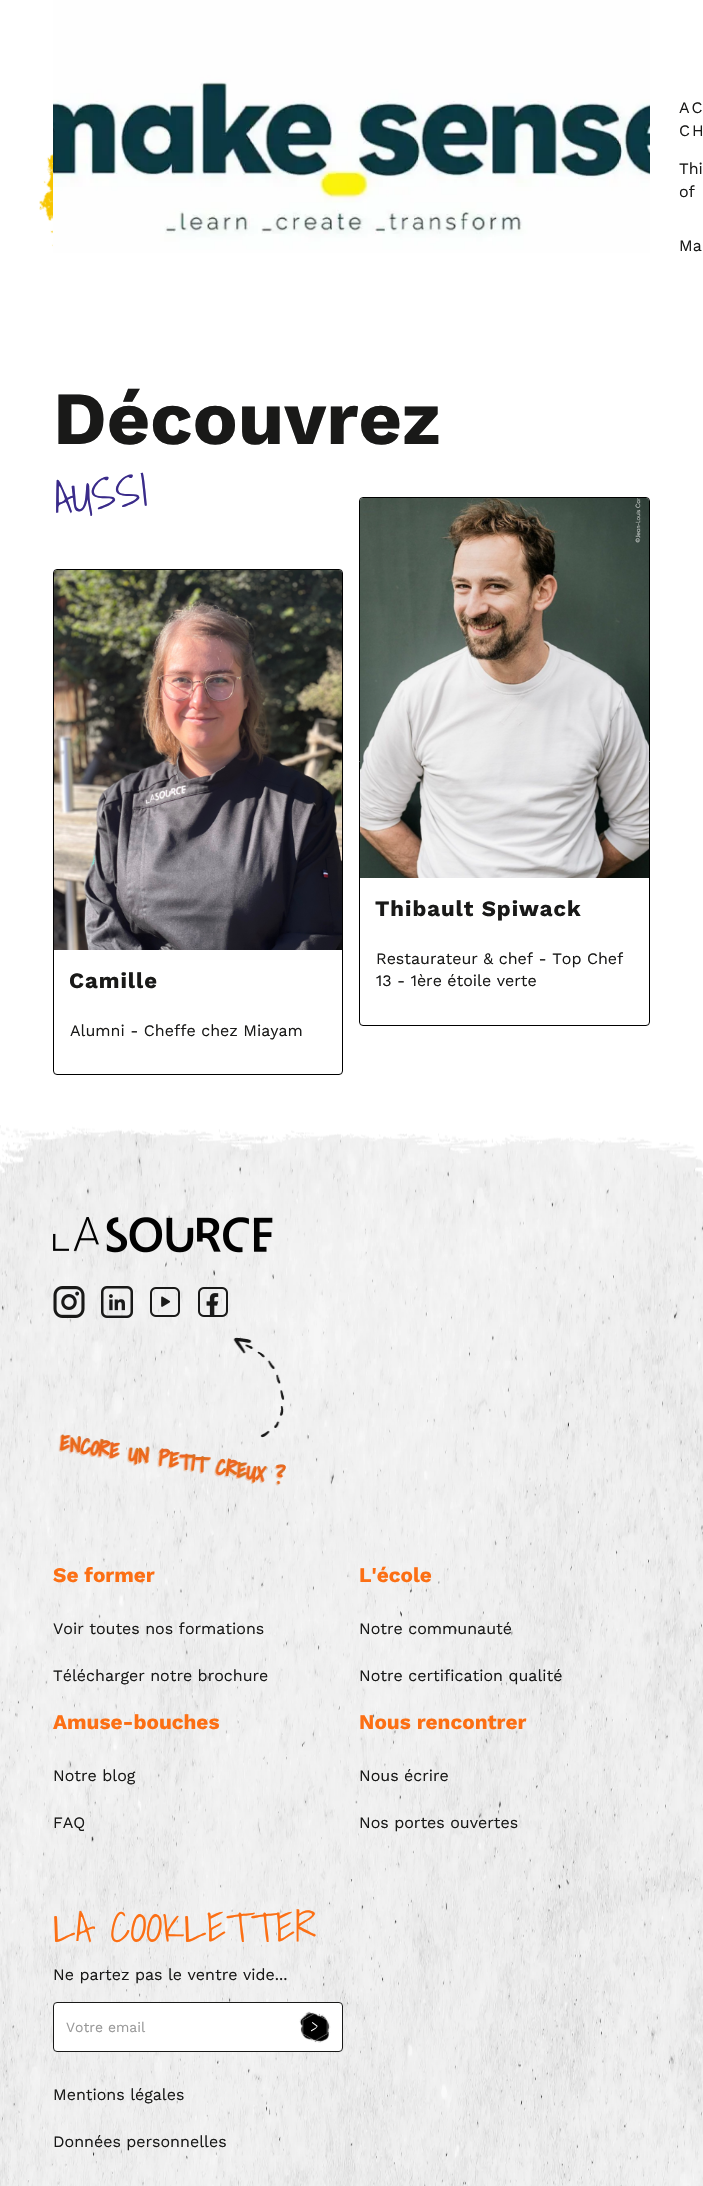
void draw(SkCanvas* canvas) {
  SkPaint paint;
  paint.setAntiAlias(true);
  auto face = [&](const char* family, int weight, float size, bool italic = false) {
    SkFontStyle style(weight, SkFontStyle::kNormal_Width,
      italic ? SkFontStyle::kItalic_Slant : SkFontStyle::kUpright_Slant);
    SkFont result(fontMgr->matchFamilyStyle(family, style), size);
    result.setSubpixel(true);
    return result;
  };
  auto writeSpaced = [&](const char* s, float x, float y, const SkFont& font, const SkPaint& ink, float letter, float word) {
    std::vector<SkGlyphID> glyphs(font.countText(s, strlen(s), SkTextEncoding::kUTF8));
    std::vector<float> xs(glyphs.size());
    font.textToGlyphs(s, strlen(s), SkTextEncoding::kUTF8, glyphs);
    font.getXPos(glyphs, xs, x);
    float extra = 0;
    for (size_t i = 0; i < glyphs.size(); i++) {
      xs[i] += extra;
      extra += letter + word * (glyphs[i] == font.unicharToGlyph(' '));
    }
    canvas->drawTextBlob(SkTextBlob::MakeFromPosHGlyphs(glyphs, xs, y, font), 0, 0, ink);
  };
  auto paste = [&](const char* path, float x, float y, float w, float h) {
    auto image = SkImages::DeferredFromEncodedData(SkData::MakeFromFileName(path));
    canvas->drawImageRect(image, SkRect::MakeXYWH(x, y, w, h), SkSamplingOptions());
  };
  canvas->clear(0xffffffff);
  paste("img/1.png", 39, 154, 14, 93);
  paste("img/2.png", 53, 0, 597, 253);
  paint.setStroke(true);
  paint.setStrokeWidth(1);
  paint.setColor(0xff000000);
  canvas->drawRoundRect(SkRect::MakeXYWH(359.5f, 497.5f, 290, 528), 3.5f, 3.5f, paint);
  paste("img/3.png", 360, 498, 289, 380);
  canvas->drawRoundRect(SkRect::MakeXYWH(53.5f, 569.5f, 289, 505), 3.5f, 3.5f, paint);
  paste("img/4.png", 54, 570, 288, 380);
  paste("img/5.png", 0, 1125, 703, 1061);
  paste("img/6.png", 53, 1217, 220, 36);
  paste("img/7.png", 53, 1286, 32, 32);
  paste("img/8.png", 101, 1286, 32, 32);
  paste("img/9.png", 150, 1287, 30, 30);
  paste("img/10.png", 198, 1287, 30, 30);
  paste("img/11.png", 58, 1337, 228, 149);
  paint.setStroke(false);
  paint.setColor(0xffffffff);
  canvas->drawRoundRect(SkRect::MakeXYWH(53.5f, 2002.5f, 289, 49), 3.5f, 3.5f, paint);
  paint.setStroke(true);
  paint.setColor(0xff191918);
  canvas->drawRoundRect(SkRect::MakeXYWH(53.5f, 2002.5f, 289, 49), 3.5f, 3.5f, paint);
  paste("img/12.png", 299, 2011, 32, 32);
  auto f0 = face("Work Sans", 400, 16);
  paint.setStroke(false);
  writeSpaced("AC", 679, 113, f0, paint, 2, 0);
  writeSpaced("CH", 679, 136, f0, paint, 2, 0);
  {
    const struct { const char* s; float x, y; } items[] = {
      {"Thi", 679, 174},
      {"of", 679, 197},
      {"Ma", 679, 251},
    };
    for (auto [s, x, y] : items) {
      canvas->drawString(s, x, y, f0, paint);
    }
  }
  auto f1 = face("Work Sans", 700, 75);
  canvas->drawString("Découvrez", 53, 444, f1, paint);
  auto f2 = face("Shadows Into Light", 300, 45);
  paint.setColor(0xff3a2b8a);
  canvas->save();
  canvas->rotate(-5, 55, 514);
  canvas->drawString("AUSSI", 55, 514, f2, paint);
  canvas->restore();
  auto f3 = face("Work Sans", 700, 22);
  paint.setColor(0xff191918);
  writeSpaced("Thibault Spiwack", 375, 916, f3, paint, 1, 0);
  canvas->drawString("Restaurateur & chef - Top Chef", 376, 964, f0, paint);
  canvas->drawString("13 - 1ère étoile verte", 376, 986, f0, paint);
  writeSpaced("Camille", 69, 988, f3, paint, 1, 0);
  canvas->drawString("Alumni - Cheffe chez Miayam", 70, 1036, f0, paint);
  auto f4 = face("Work Sans", 700, 20.75f);
  paint.setColor(0xfffc6f14);
  canvas->drawString("Se former", 53, 1582, f4, paint);
  paint.setColor(0xff191918);
  canvas->drawString("Voir toutes nos formations", 53, 1634, f0, paint);
  canvas->drawString("Télécharger notre brochure", 53, 1681, f0, paint);
  paint.setColor(0xfffc6f14);
  canvas->drawString("L'école", 359, 1582, f4, paint);
  paint.setColor(0xff191918);
  canvas->drawString("Notre communauté", 359, 1634, f0, paint);
  canvas->drawString("Notre certification qualité", 359, 1681, f0, paint);
  paint.setColor(0xfffc6f14);
  canvas->drawString("Amuse-bouches", 53, 1729, f4, paint);
  paint.setColor(0xff191918);
  canvas->drawString("Notre blog", 53, 1781, f0, paint);
  canvas->drawString("FAQ", 53, 1828, f0, paint);
  paint.setColor(0xfffc6f14);
  canvas->drawString("Nous rencontrer", 359, 1729, f4, paint);
  paint.setColor(0xff191918);
  canvas->drawString("Nous écrire", 359, 1781, f0, paint);
  canvas->drawString("Nos portes ouvertes", 359, 1828, f0, paint);
  auto f5 = face("Shadows Into Light", 300, 41.5f);
  paint.setColor(0xfffc6f14);
  canvas->drawString("LA COOKLETTER", 53, 1942, f5, paint);
  paint.setColor(0xff191918);
  canvas->drawString("Ne partez pas le ventre vide...", 53, 1980, f0, paint);
  auto f6 = face("Work Sans", 400, 14);
  paint.setColor(0xff999999);
  canvas->drawString("Votre email", 66, 2032, f6, paint);
  paint.setColor(0xff191918);
  canvas->drawString("Mentions légales", 53, 2100, f0, paint);
  canvas->drawString("Données personnelles", 53, 2147, f0, paint);
}
